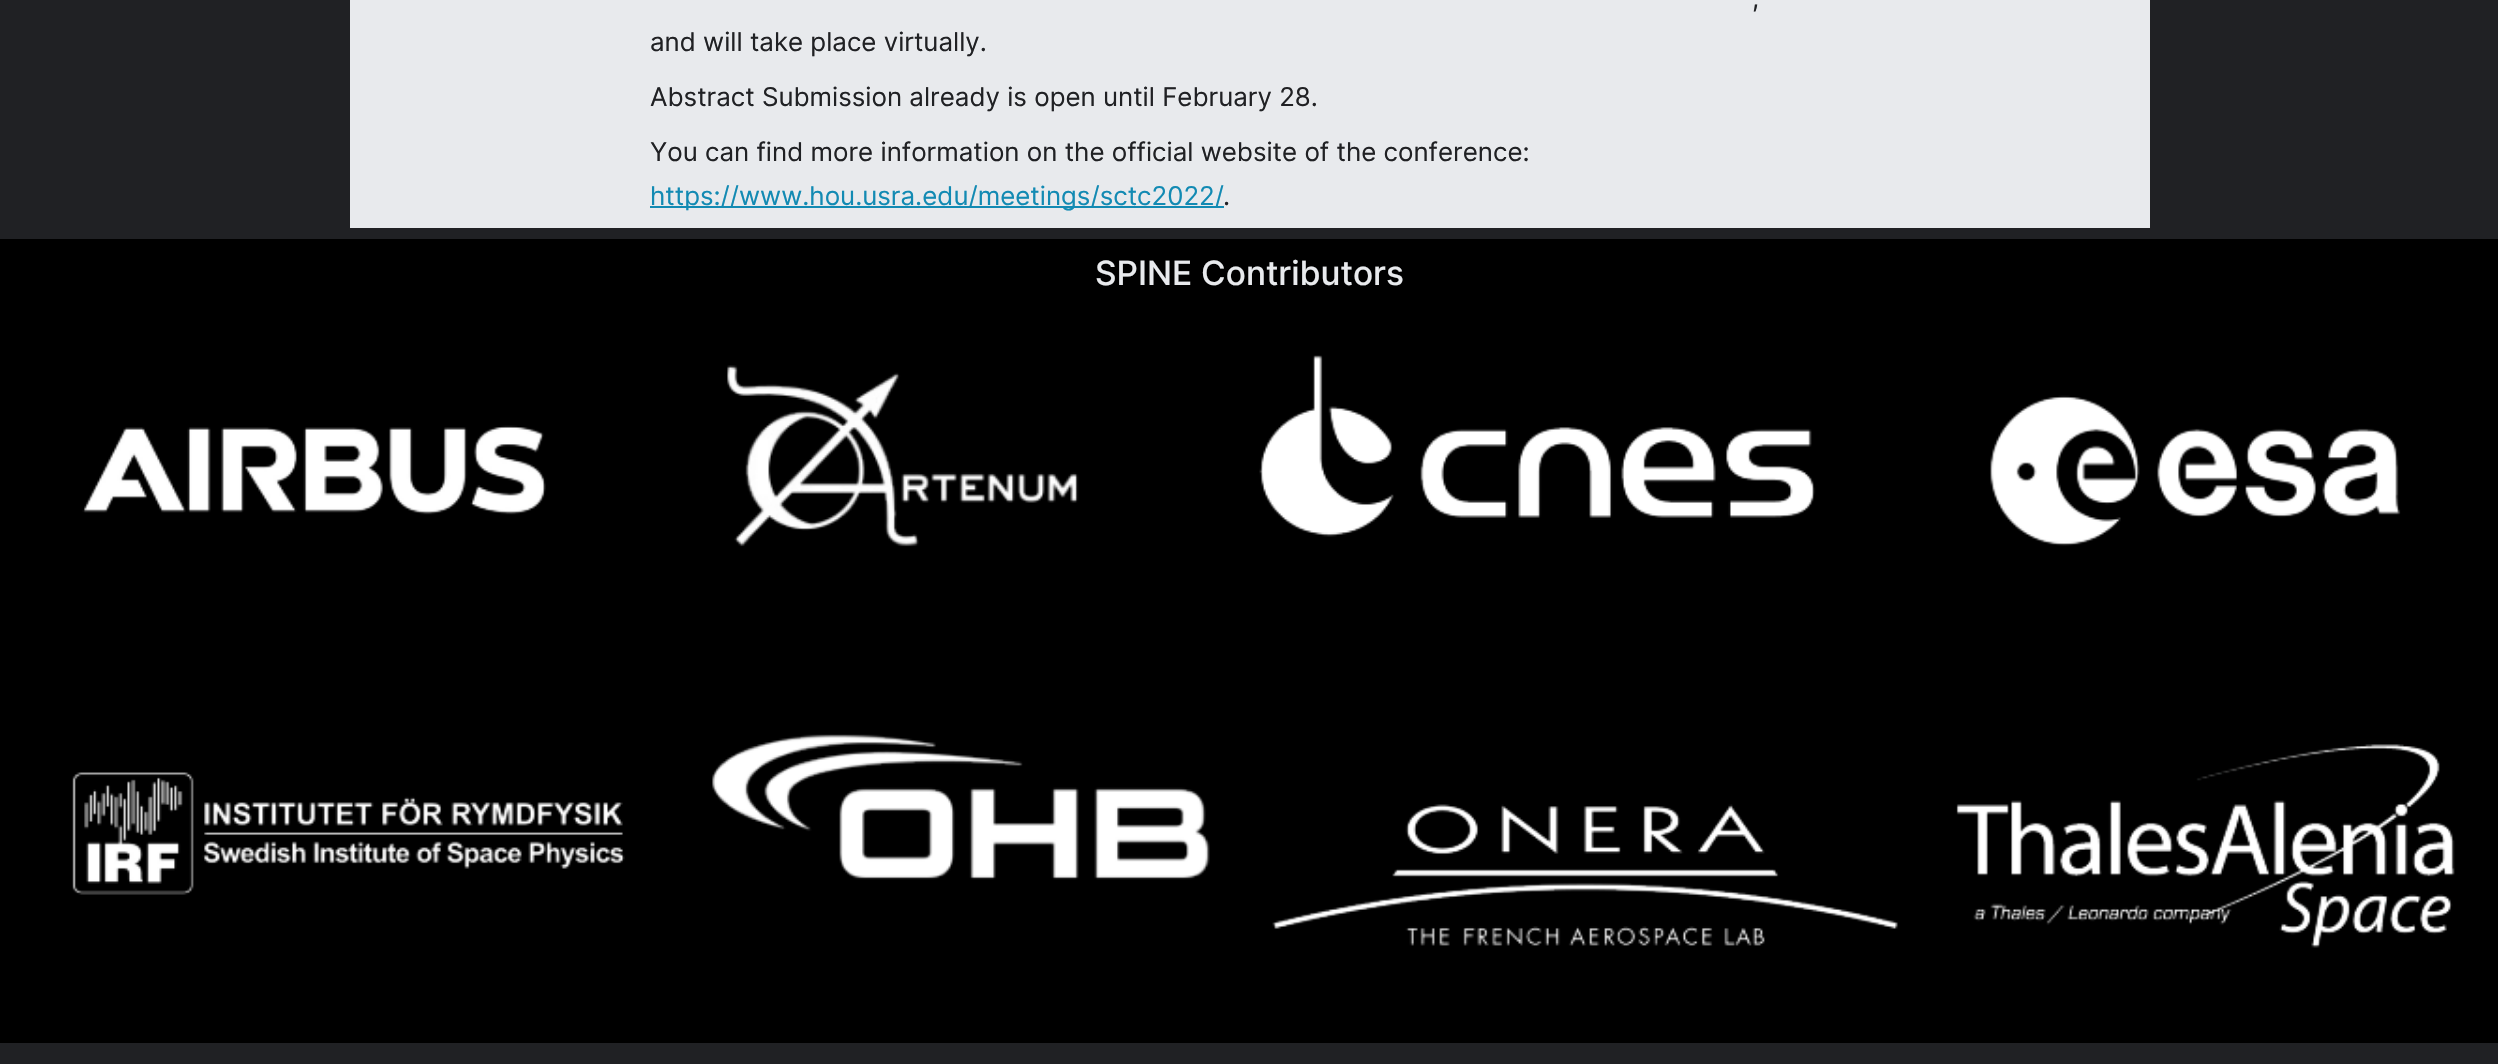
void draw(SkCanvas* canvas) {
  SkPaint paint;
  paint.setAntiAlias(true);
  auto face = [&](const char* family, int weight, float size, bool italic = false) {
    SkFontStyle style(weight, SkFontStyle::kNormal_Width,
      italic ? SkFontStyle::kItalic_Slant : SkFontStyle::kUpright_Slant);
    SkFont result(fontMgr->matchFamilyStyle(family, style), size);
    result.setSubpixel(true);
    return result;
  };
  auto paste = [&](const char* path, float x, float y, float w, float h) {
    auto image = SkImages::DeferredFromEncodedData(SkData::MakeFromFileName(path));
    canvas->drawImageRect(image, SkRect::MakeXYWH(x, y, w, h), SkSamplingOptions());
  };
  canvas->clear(0xff202124);
  {
    const struct { float x, y, w, h; SkColor color; } items[] = {
      {350, 0, 1800, 228, 0xffe8eaed},
      {650, 206, 574, 2, 0xff128ab3},
      {0, 239, 2498, 804, 0xff000000},
    };
    for (auto [x, y, w, h, color] : items) {
      paint.setColor(color);
      canvas->drawRect(SkRect::MakeXYWH(x, y, w, h), paint);
    }
  }
  paste("img/1.png", 72, 355, 2383, 593);
  auto f0 = face("Inter", 400, 25.9f);
  paint.setColor(0xff202124);
  {
    const struct { const char* s; float x, y; } items[] = {
      {",", 1752, 7},
      {"and will take place virtually.", 650, 51},
      {"Abstract Submission already is open until February 28.", 650, 106},
      {"You can find more information on the official website of the conference:", 650, 161},
    };
    for (auto [s, x, y] : items) {
      canvas->drawString(s, x, y, f0, paint);
    }
  }
  paint.setColor(0xff128ab3);
  canvas->drawString("https://www.hou.usra.edu/meetings/sctc2022/", 650, 205, f0, paint);
  paint.setColor(0xff202124);
  canvas->drawString(".", 1223, 205, f0, paint);
  auto f1 = face("Inter", 500, 33.5f);
  paint.setColor(0xffe8eaed);
  canvas->drawString("SPINE Contributors", 1095, 285, f1, paint);
}
